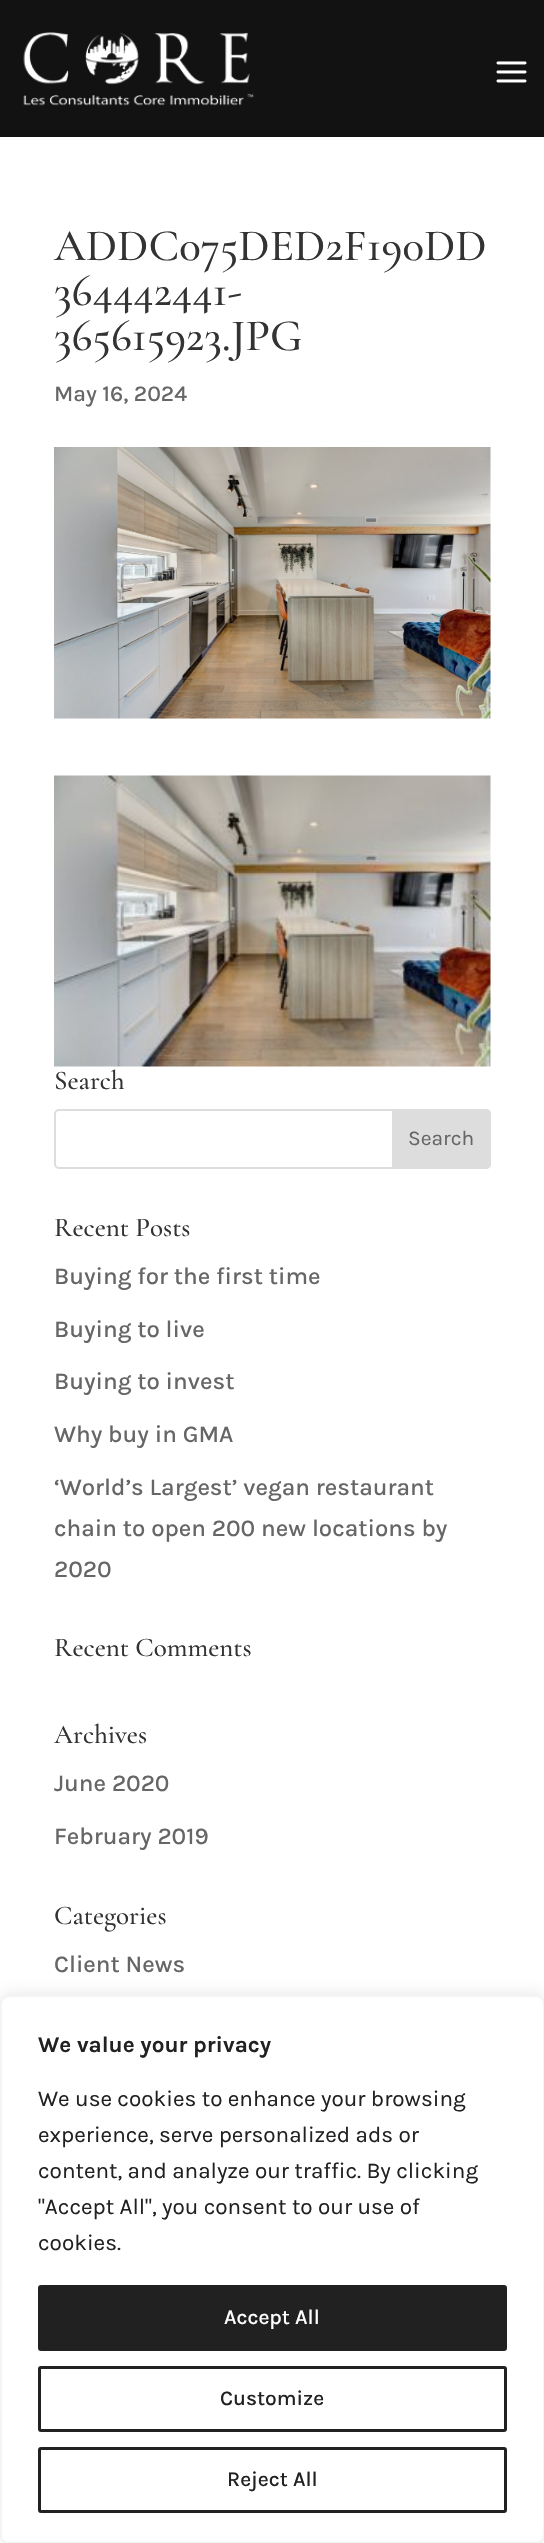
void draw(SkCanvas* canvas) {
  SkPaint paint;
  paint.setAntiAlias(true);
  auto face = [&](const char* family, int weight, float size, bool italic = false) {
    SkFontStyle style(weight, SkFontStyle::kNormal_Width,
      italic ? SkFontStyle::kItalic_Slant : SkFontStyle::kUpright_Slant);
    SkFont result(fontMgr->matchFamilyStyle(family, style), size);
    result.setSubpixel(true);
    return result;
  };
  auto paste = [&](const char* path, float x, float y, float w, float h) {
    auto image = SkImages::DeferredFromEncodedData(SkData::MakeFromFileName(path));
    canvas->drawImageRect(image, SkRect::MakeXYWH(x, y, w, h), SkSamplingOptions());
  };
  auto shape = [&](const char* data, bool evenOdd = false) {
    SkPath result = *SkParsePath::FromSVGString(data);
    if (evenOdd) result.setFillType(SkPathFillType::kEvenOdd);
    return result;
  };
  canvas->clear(0xffffffff);
  paint.setColor(0xff121212);
  canvas->drawRect(SkRect::MakeXYWH(0, 0, 544, 137), paint);
  paste("img/1.png", 23, 32, 231, 74);
  paste("img/2.png", 496, 61, 31, 22);
  paste("img/3.png", 54, 447, 437, 272);
  paste("img/4.png", 54, 775, 437, 292);
  paint.setStroke(true);
  paint.setStrokeWidth(2);
  paint.setColor(0xffdddddd);
  canvas->drawRoundRect(SkRect::MakeXYWH(55, 1110, 435, 58), 4, 4, paint);
  paint.setStroke(false);
  canvas->drawPath(shape("M393 1110H486C488 1110 490 1112 490 1114V1164C490 1166 488 1168 486 1168H393Z"), paint);
  paint.setStroke(true);
  canvas->drawPath(shape("M393 1110H486C488 1110 490 1112 490 1114V1164C490 1166 488 1168 486 1168H393Z"), paint);
  paint.setStroke(false);
  paint.setColor(0x4dacabab);
  paint.setMaskFilter(SkMaskFilter::MakeBlur(kNormal_SkBlurStyle, 7.5f));
  canvas->drawRoundRect(SkRect::MakeXYWH(0, 1994, 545, 549), 9, 9, paint);
  paint.setMaskFilter(nullptr);
  paint.setColor(0xffffffff);
  canvas->drawRoundRect(SkRect::MakeXYWH(1, 1996, 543, 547), 8, 8, paint);
  paint.setStroke(true);
  paint.setColor(0xfff4f4f4);
  canvas->drawRoundRect(SkRect::MakeXYWH(1, 1996, 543, 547), 8, 8, paint);
  paint.setStroke(false);
  paint.setColor(0xff212121);
  canvas->drawRoundRect(SkRect::MakeXYWH(39.5f, 2286.5f, 466, 63), 1.5f, 1.5f, paint);
  paint.setStroke(true);
  paint.setStrokeWidth(3);
  canvas->drawRoundRect(SkRect::MakeXYWH(39.5f, 2286.5f, 466, 63), 1.5f, 1.5f, paint);
  canvas->drawRoundRect(SkRect::MakeXYWH(39.5f, 2367.5f, 466, 63), 1.5f, 1.5f, paint);
  canvas->drawRoundRect(SkRect::MakeXYWH(39.5f, 2448.5f, 466, 63), 1.5f, 1.5f, paint);
  auto f0 = face("Cormorant Garamond", 500, 45);
  paint.setStroke(false);
  paint.setColor(0xff333333);
  {
    const struct { const char* s; float x, y; } items[] = {
      {"ADDC075DED2F190DD", 54, 260},
      {"364442441-", 54, 305},
      {"365615923.JPG", 54, 350},
    };
    for (auto [s, x, y] : items) {
      canvas->drawString(s, x, y, f0, paint);
    }
  }
  auto f1 = face("Karla", 500, 22.5f);
  paint.setColor(0xff666666);
  canvas->drawString("May 16, 2024", 54, 401, f1, paint);
  auto f2 = face("Cormorant Garamond", 500, 27);
  paint.setColor(0xff333333);
  canvas->drawString("Search", 54, 1089, f2, paint);
  auto f3 = face("Karla", 400, 21);
  paint.setColor(0xff666666);
  canvas->drawString("Search", 408, 1145, f3, paint);
  paint.setColor(0xff333333);
  canvas->drawString("Recent Posts", 54, 1236, f2, paint);
  auto f4 = face("Karla", 500, 24);
  paint.setColor(0xff666666);
  {
    const struct { const char* s; float x, y; } items[] = {
      {"Buying for the first time", 54, 1284},
      {"Buying to live", 54, 1337},
      {"Buying to invest", 54, 1389},
      {"Why buy in GMA", 54, 1442},
      {"‘World’s Largest’ vegan restaurant", 54, 1495},
      {"chain to open 200 new locations by", 54, 1536},
      {"2020", 54, 1577},
    };
    for (auto [s, x, y] : items) {
      canvas->drawString(s, x, y, f4, paint);
    }
  }
  paint.setColor(0xff333333);
  canvas->drawString("Recent Comments", 54, 1656, f2, paint);
  canvas->drawString("Archives", 54, 1743, f2, paint);
  paint.setColor(0xff666666);
  canvas->drawString("June 2020", 54, 1791, f4, paint);
  canvas->drawString("February 2019", 54, 1844, f4, paint);
  paint.setColor(0xff333333);
  canvas->drawString("Categories", 54, 1924, f2, paint);
  paint.setColor(0xff666666);
  canvas->drawString("Client News", 54, 1972, f4, paint);
  auto f5 = face("Karla", 700, 22.5f);
  paint.setColor(0xff212121);
  canvas->drawString("We value your privacy", 38, 2052, f5, paint);
  auto f6 = face("Karla", 400, 22.5f);
  {
    const struct { const char* s; float x, y; } items[] = {
      {"We use cookies to enhance your browsing", 38, 2106},
      {"experience, serve personalized ads or", 38, 2142},
      {"content, and analyze our traffic. By clicking", 38, 2178},
      {"\"Accept All\", you consent to our use of", 38, 2214},
      {"cookies.", 38, 2250},
    };
    for (auto [s, x, y] : items) {
      canvas->drawString(s, x, y, f6, paint);
    }
  }
  auto f7 = face("Karla", 500, 21);
  paint.setColor(0xffffffff);
  canvas->drawString("Accept All", 224, 2324, f7, paint);
  paint.setColor(0xff212121);
  canvas->drawString("Customize", 220, 2405, f7, paint);
  canvas->drawString("Reject All", 227, 2486, f7, paint);
}
